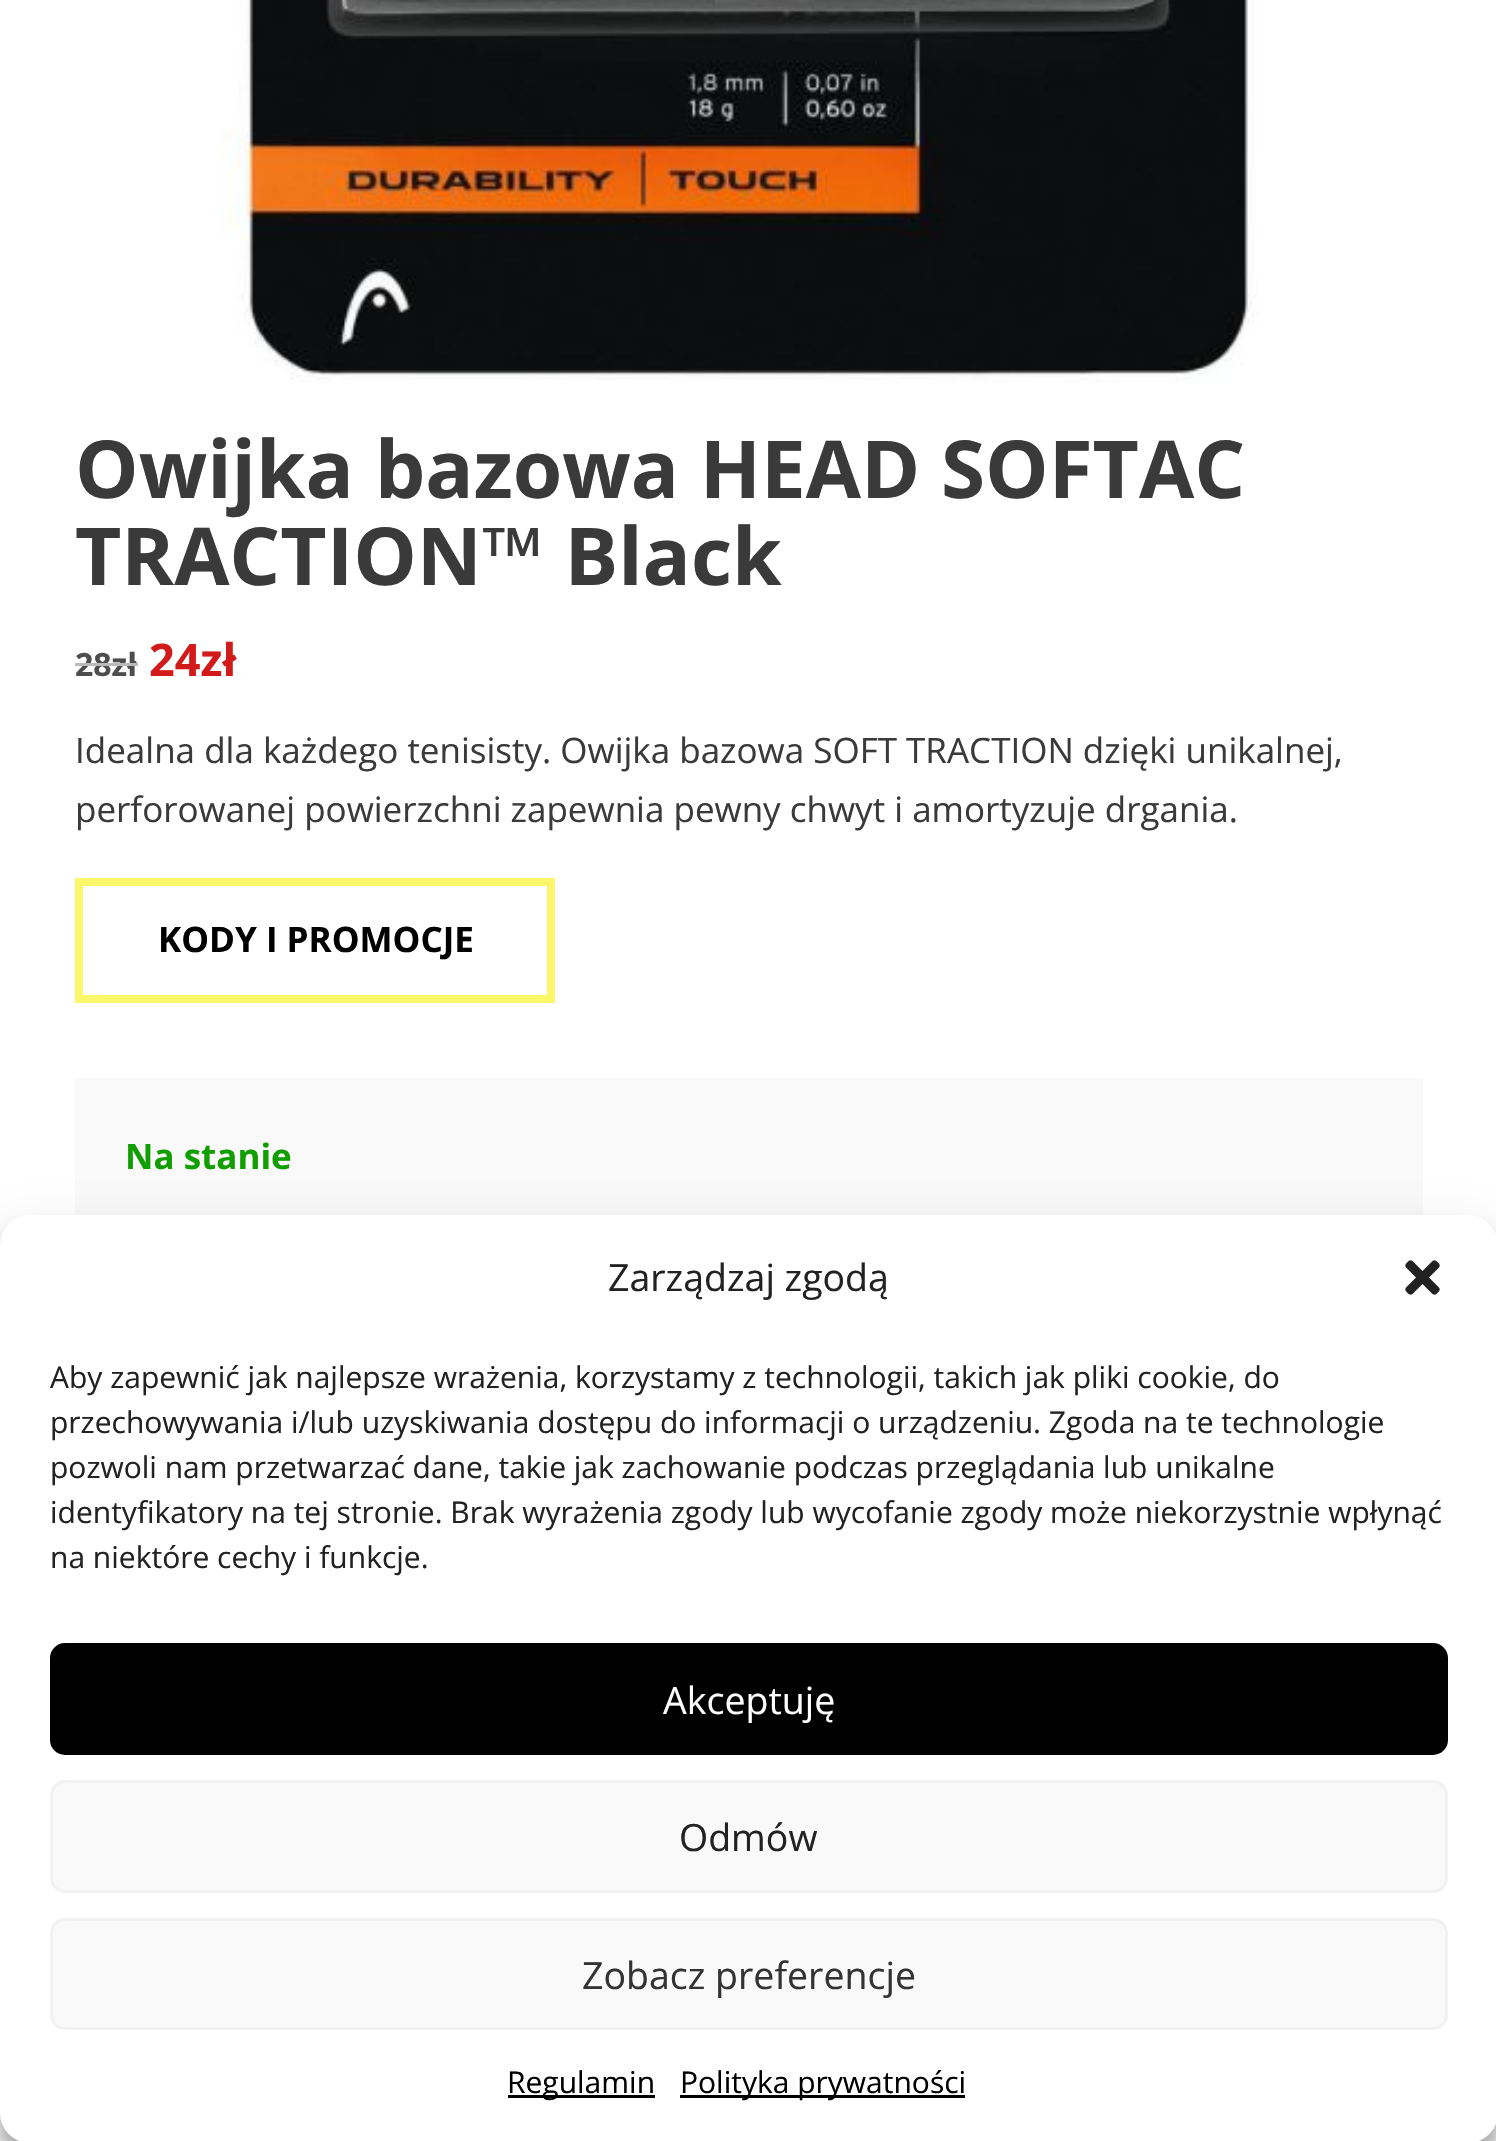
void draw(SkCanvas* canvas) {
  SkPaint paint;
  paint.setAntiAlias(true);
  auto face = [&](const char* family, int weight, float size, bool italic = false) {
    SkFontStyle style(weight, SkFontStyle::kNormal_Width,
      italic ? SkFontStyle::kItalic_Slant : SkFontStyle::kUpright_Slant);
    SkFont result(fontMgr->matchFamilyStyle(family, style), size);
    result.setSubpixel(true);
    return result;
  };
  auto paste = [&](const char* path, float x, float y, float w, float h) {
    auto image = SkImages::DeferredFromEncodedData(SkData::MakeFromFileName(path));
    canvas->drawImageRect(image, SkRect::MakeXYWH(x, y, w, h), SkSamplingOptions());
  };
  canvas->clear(0xffffffff);
  paste("img/1.png", 219, 0, 1039, 383);
  paint.setStroke(true);
  paint.setStrokeWidth(8);
  paint.setColor(0xfffcf76a);
  canvas->drawRect(SkRect::MakeXYWH(79, 882, 472, 117), paint);
  paint.setStroke(false);
  paint.setColor(0xfff9f9f9);
  canvas->drawRect(SkRect::MakeXYWH(75, 1078, 1348, 137), paint);
  paint.setColor(0x3b000000);
  paint.setMaskFilter(SkMaskFilter::MakeBlur(kNormal_SkBlurStyle, 7.5f));
  canvas->drawRoundRect(SkRect::MakeXYWH(0, 1230, 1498, 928), 30, 30, paint);
  paint.setMaskFilter(nullptr);
  paint.setColor(0x30000000);
  paint.setMaskFilter(SkMaskFilter::MakeBlur(kNormal_SkBlurStyle, 25));
  canvas->drawRoundRect(SkRect::MakeXYWH(0, 1240, 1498, 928), 30, 30, paint);
  paint.setMaskFilter(nullptr);
  paint.setColor(0xffffffff);
  canvas->drawRoundRect(SkRect::MakeXYWH(0, 1215, 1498, 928), 30, 30, paint);
  paste("img/2.png", 1405, 1260, 35, 35);
  paint.setColor(0xff000000);
  canvas->drawRoundRect(SkRect::MakeXYWH(51.5f, 1644.5f, 1395, 109), 13.5f, 13.5f, paint);
  paint.setStroke(true);
  paint.setStrokeWidth(3);
  canvas->drawRoundRect(SkRect::MakeXYWH(51.5f, 1644.5f, 1395, 109), 13.5f, 13.5f, paint);
  paint.setStroke(false);
  paint.setColor(0xfff9f9f9);
  canvas->drawRoundRect(SkRect::MakeXYWH(51.5f, 1781.5f, 1395, 110), 13.5f, 13.5f, paint);
  paint.setStroke(true);
  paint.setColor(0xfff2f2f2);
  canvas->drawRoundRect(SkRect::MakeXYWH(51.5f, 1781.5f, 1395, 110), 13.5f, 13.5f, paint);
  paint.setStroke(false);
  paint.setColor(0xfff9f9f9);
  canvas->drawRoundRect(SkRect::MakeXYWH(51.5f, 1919.5f, 1395, 109), 13.5f, 13.5f, paint);
  paint.setStroke(true);
  paint.setColor(0xfff2f2f2);
  canvas->drawRoundRect(SkRect::MakeXYWH(51.5f, 1919.5f, 1395, 109), 13.5f, 13.5f, paint);
  paint.setStroke(false);
  paint.setColor(0xff000000);
  canvas->drawRect(SkRect::MakeXYWH(508, 2095, 147, 3), paint);
  canvas->drawRect(SkRect::MakeXYWH(680, 2095, 285, 3), paint);
  auto f0 = face("Open Sans", 700, 80);
  paint.setColor(0xff3a3a3a);
  canvas->drawString("Owijka bazowa HEAD SOFTAC", 75, 498, f0, paint);
  canvas->drawString("TRACTION™ Black", 75, 585, f0, paint);
  auto f1 = face("Open Sans", 700, 32);
  paint.setColor(0xff4d4d4d);
  canvas->drawString("28zł", 75, 676, f1, paint);
  paint.setColor(0xffbababa);
  canvas->drawRect(SkRect::MakeXYWH(75, 663, 63, 3), paint);
  auto f2 = face("Open Sans", 700, 45);
  paint.setColor(0xffd31a1a);
  canvas->drawString("24zł", 149, 676, f2, paint);
  auto f3 = face("Open Sans", 400, 35);
  paint.setColor(0xff3a3a3a);
  canvas->drawString("Idealna dla każdego tenisisty. Owijka bazowa SOFT TRACTION dzięki unikalnej,", 75, 763, f3, paint);
  canvas->drawString("perforowanej powierzchni zapewnia pewny chwyt i amortyzuje drgania.", 75, 822, f3, paint);
  auto f4 = face("Open Sans", 700, 35);
  paint.setColor(0xff000000);
  canvas->drawString("KODY I PROMOCJE", 158, 952, f4, paint);
  paint.setColor(0xff119e00);
  canvas->drawString("Na stanie", 125, 1169, f4, paint);
  auto f5 = face("Open Sans", 400, 37.5f);
  paint.setColor(0xff222222);
  canvas->drawString("Zarządzaj zgodą", 608, 1291, f5, paint);
  auto f6 = face("Open Sans", 400, 30);
  {
    const struct { const char* s; float x, y; } items[] = {
      {"Aby zapewnić jak najlepsze wrażenia, korzystamy z technologii, takich jak pliki cookie, do", 50, 1388},
      {"przechowywania i/lub uzyskiwania dostępu do informacji o urządzeniu. Zgoda na te technologie", 50, 1433},
      {"pozwoli nam przetwarzać dane, takie jak zachowanie podczas przeglądania lub unikalne", 50, 1478},
      {"identyfikatory na tej stronie. Brak wyrażenia zgody lub wycofanie zgody może niekorzystnie wpłynąć", 50, 1523},
      {"na niektóre cechy i funkcje.", 50, 1568},
    };
    for (auto [s, x, y] : items) {
      canvas->drawString(s, x, y, f6, paint);
    }
  }
  paint.setColor(0xffffffff);
  canvas->drawString("Akceptuję", 663, 1714, f5, paint);
  paint.setColor(0xff222222);
  canvas->drawString("Odmów", 679, 1851, f5, paint);
  paint.setColor(0xff333333);
  canvas->drawString("Zobacz preferencje", 582, 1989, f5, paint);
  paint.setColor(0xff000000);
  canvas->drawString("Regulamin", 507, 2093, f6, paint);
  canvas->drawString("Polityka prywatności", 680, 2093, f6, paint);
}
